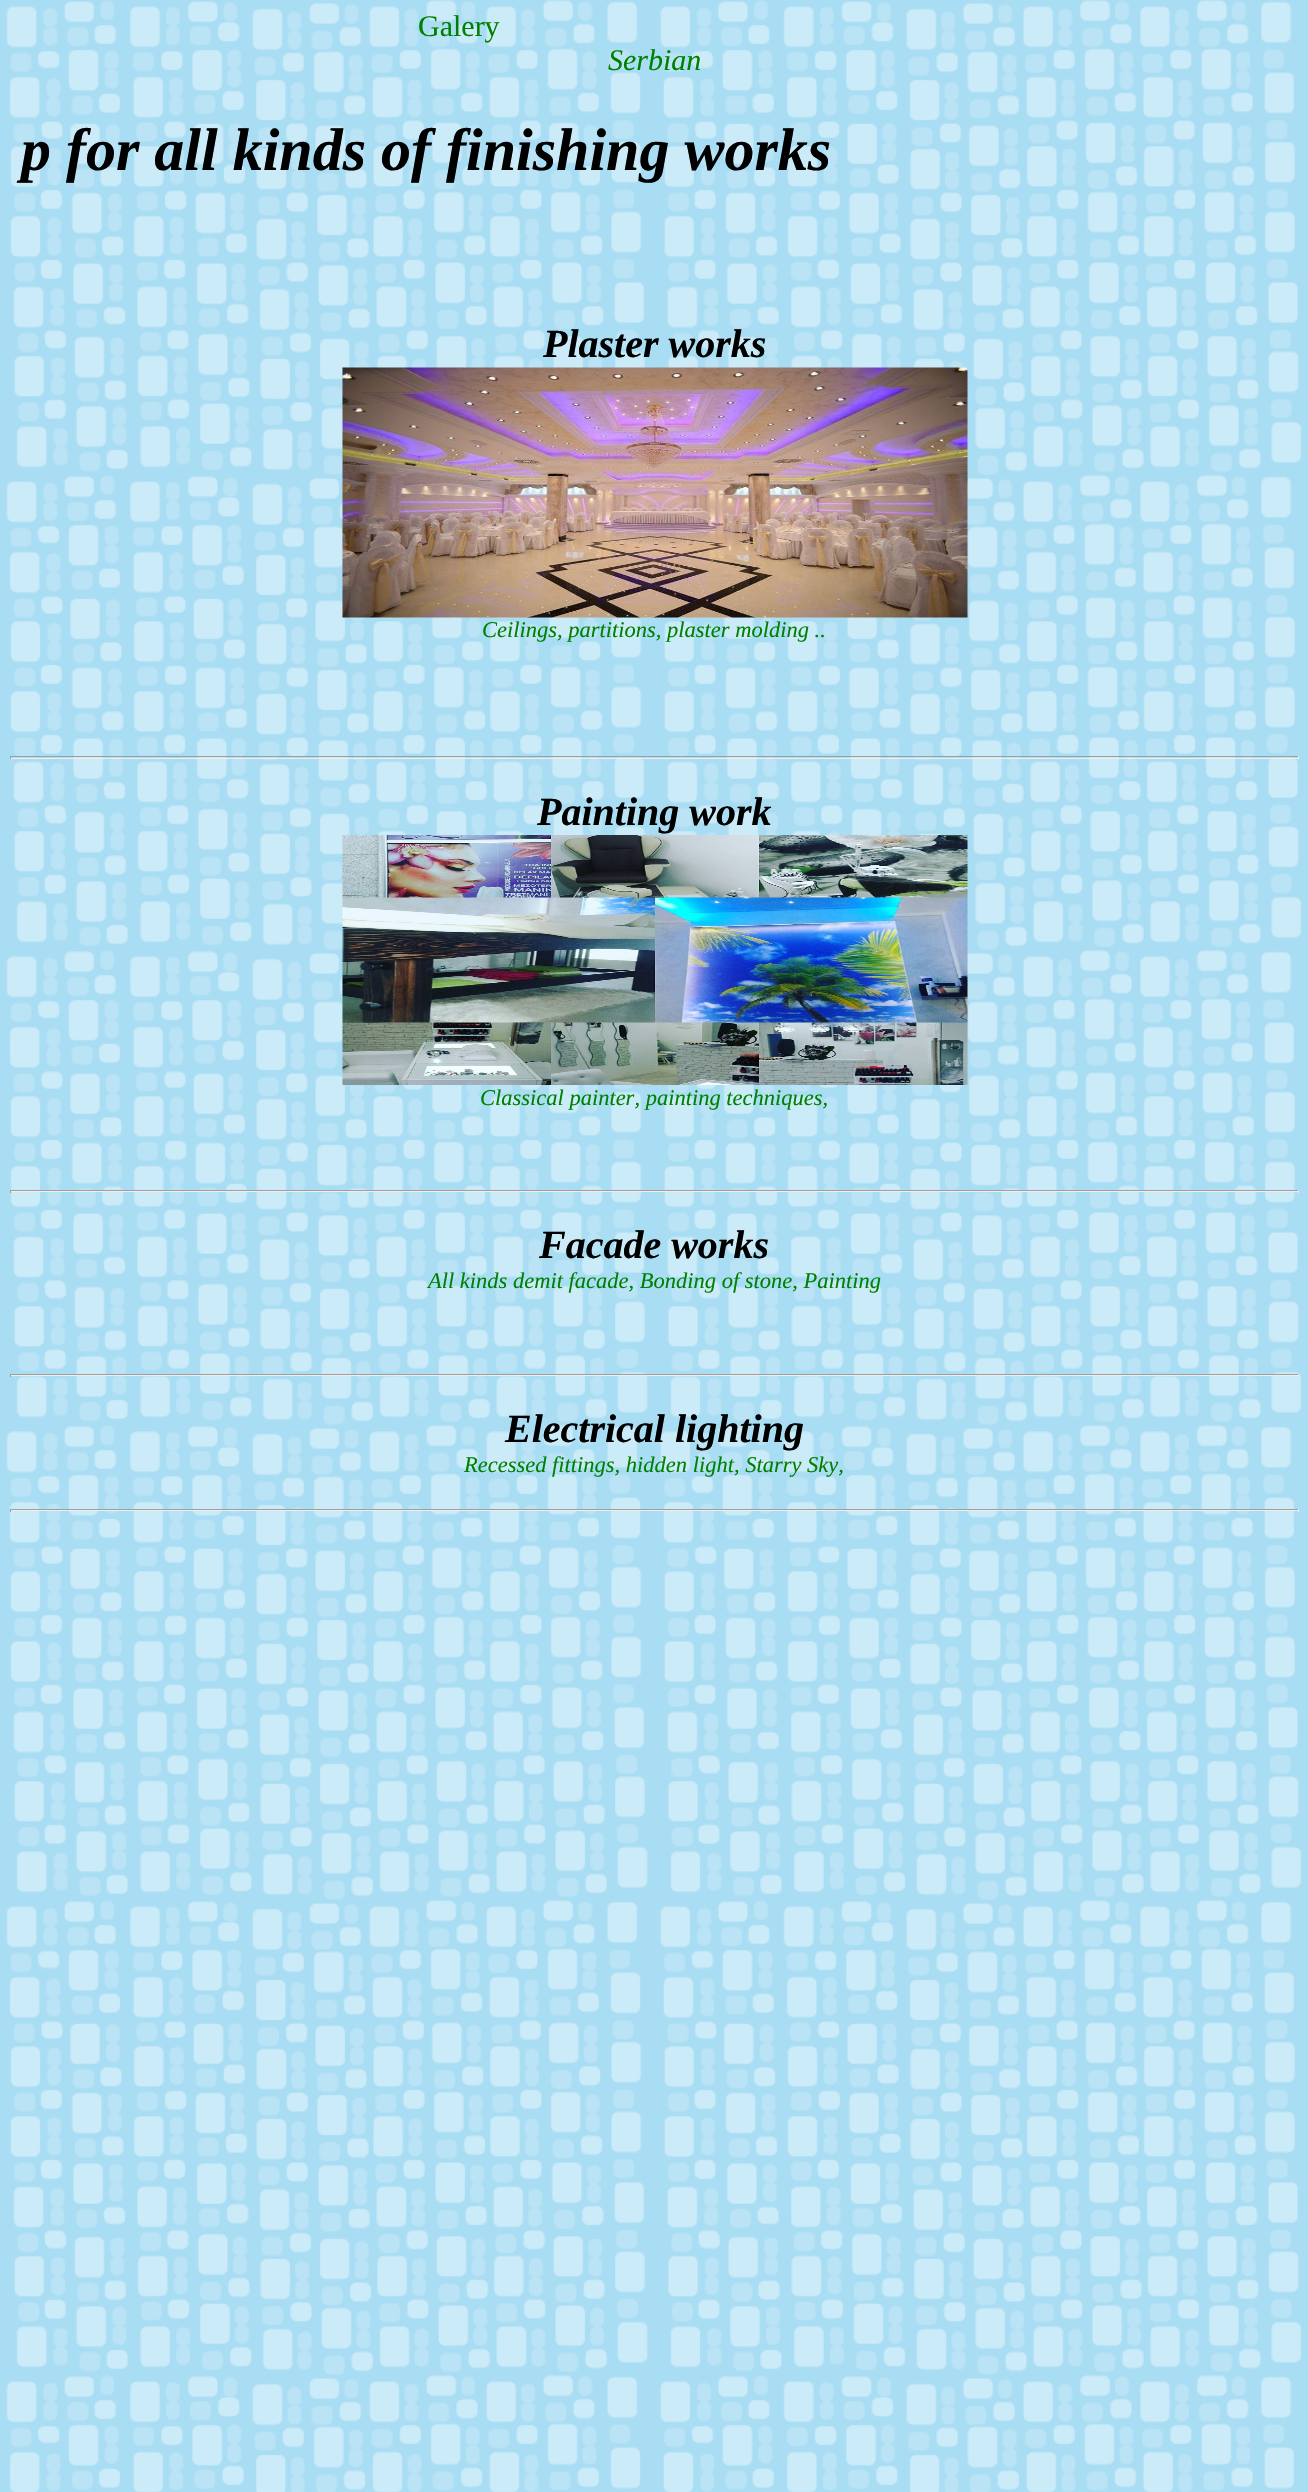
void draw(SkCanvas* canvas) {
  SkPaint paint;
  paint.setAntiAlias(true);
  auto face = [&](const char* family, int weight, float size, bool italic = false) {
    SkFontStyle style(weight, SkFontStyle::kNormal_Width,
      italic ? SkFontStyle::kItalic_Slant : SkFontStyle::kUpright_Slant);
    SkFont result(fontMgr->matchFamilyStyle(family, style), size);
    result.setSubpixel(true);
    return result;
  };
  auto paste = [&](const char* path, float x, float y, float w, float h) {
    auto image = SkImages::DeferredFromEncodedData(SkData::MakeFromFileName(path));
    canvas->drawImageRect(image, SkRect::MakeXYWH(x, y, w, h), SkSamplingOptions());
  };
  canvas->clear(0xffffffff);
  paste("img/1.png", 0, 0, 1308, 2492);
  paste("img/2.png", 342, 367, 626, 251);
  {
    const struct { float x, y, w, h; SkColor color; } items[] = {
      {10, 756, 1289, 1, 0xff9f9f9f},
      {1298, 756, 1, 3, 0xffeeeeee},
      {10, 758, 1289, 1, 0xffeeeeee},
      {10, 756, 1, 3, 0xff9f9f9f},
    };
    for (auto [x, y, w, h, color] : items) {
      paint.setColor(color);
      canvas->drawRect(SkRect::MakeXYWH(x, y, w, h), paint);
    }
  }
  paste("img/3.png", 342, 835, 626, 250);
  {
    const struct { float x, y, w, h; SkColor color; } items[] = {
      {10, 1190, 1289, 1, 0xff9f9f9f},
      {1298, 1190, 1, 3, 0xffeeeeee},
      {10, 1191, 1289, 1, 0xffeeeeee},
      {10, 1190, 1, 3, 0xff9f9f9f},
      {10, 1374, 1289, 1, 0xff9f9f9f},
      {1298, 1374, 1, 3, 0xffeeeeee},
      {10, 1375, 1289, 1, 0xffeeeeee},
      {10, 1374, 1, 3, 0xff9f9f9f},
      {10, 1509, 1289, 1, 0xff9f9f9f},
      {1298, 1509, 1, 3, 0xffeeeeee},
      {10, 1510, 1289, 1, 0xffeeeeee},
      {10, 1509, 1, 3, 0xff9f9f9f},
    };
    for (auto [x, y, w, h, color] : items) {
      paint.setColor(color);
      canvas->drawRect(SkRect::MakeXYWH(x, y, w, h), paint);
    }
  }
  auto f0 = face("Liberation Serif", 400, 30);
  paint.setColor(0xff008000);
  canvas->drawString("Galery", 418, 36, f0, paint);
  auto f1 = face("Liberation Serif", 400, 30, true);
  canvas->drawString("Serbian", 608, 70, f1, paint);
  auto f2 = face("Liberation Serif", 700, 60, true);
  paint.setColor(0xff000000);
  canvas->drawString("p for all kinds of finishing works", 21, 170, f2, paint);
  auto f3 = face("Liberation Serif", 700, 40, true);
  canvas->drawString("Plaster works", 543, 357, f3, paint);
  auto f4 = face("Liberation Serif", 400, 22.5f, true);
  paint.setColor(0xff008000);
  canvas->drawString("Ceilings, partitions, plaster molding ..", 482, 637, f4, paint);
  paint.setColor(0xff000000);
  canvas->drawString("Painting work", 537, 825, f3, paint);
  paint.setColor(0xff008000);
  canvas->drawString("Classical painter, painting techniques,", 480, 1105, f4, paint);
  paint.setColor(0xff000000);
  canvas->drawString("Facade works", 539, 1258, f3, paint);
  paint.setColor(0xff008000);
  canvas->drawString("All kinds demit facade, Bonding of stone, Painting", 428, 1288, f4, paint);
  paint.setColor(0xff000000);
  canvas->drawString("Electrical lighting", 505, 1442, f3, paint);
  paint.setColor(0xff008000);
  canvas->drawString("Recessed fittings, hidden light, Starry Sky,", 464, 1472, f4, paint);
}
